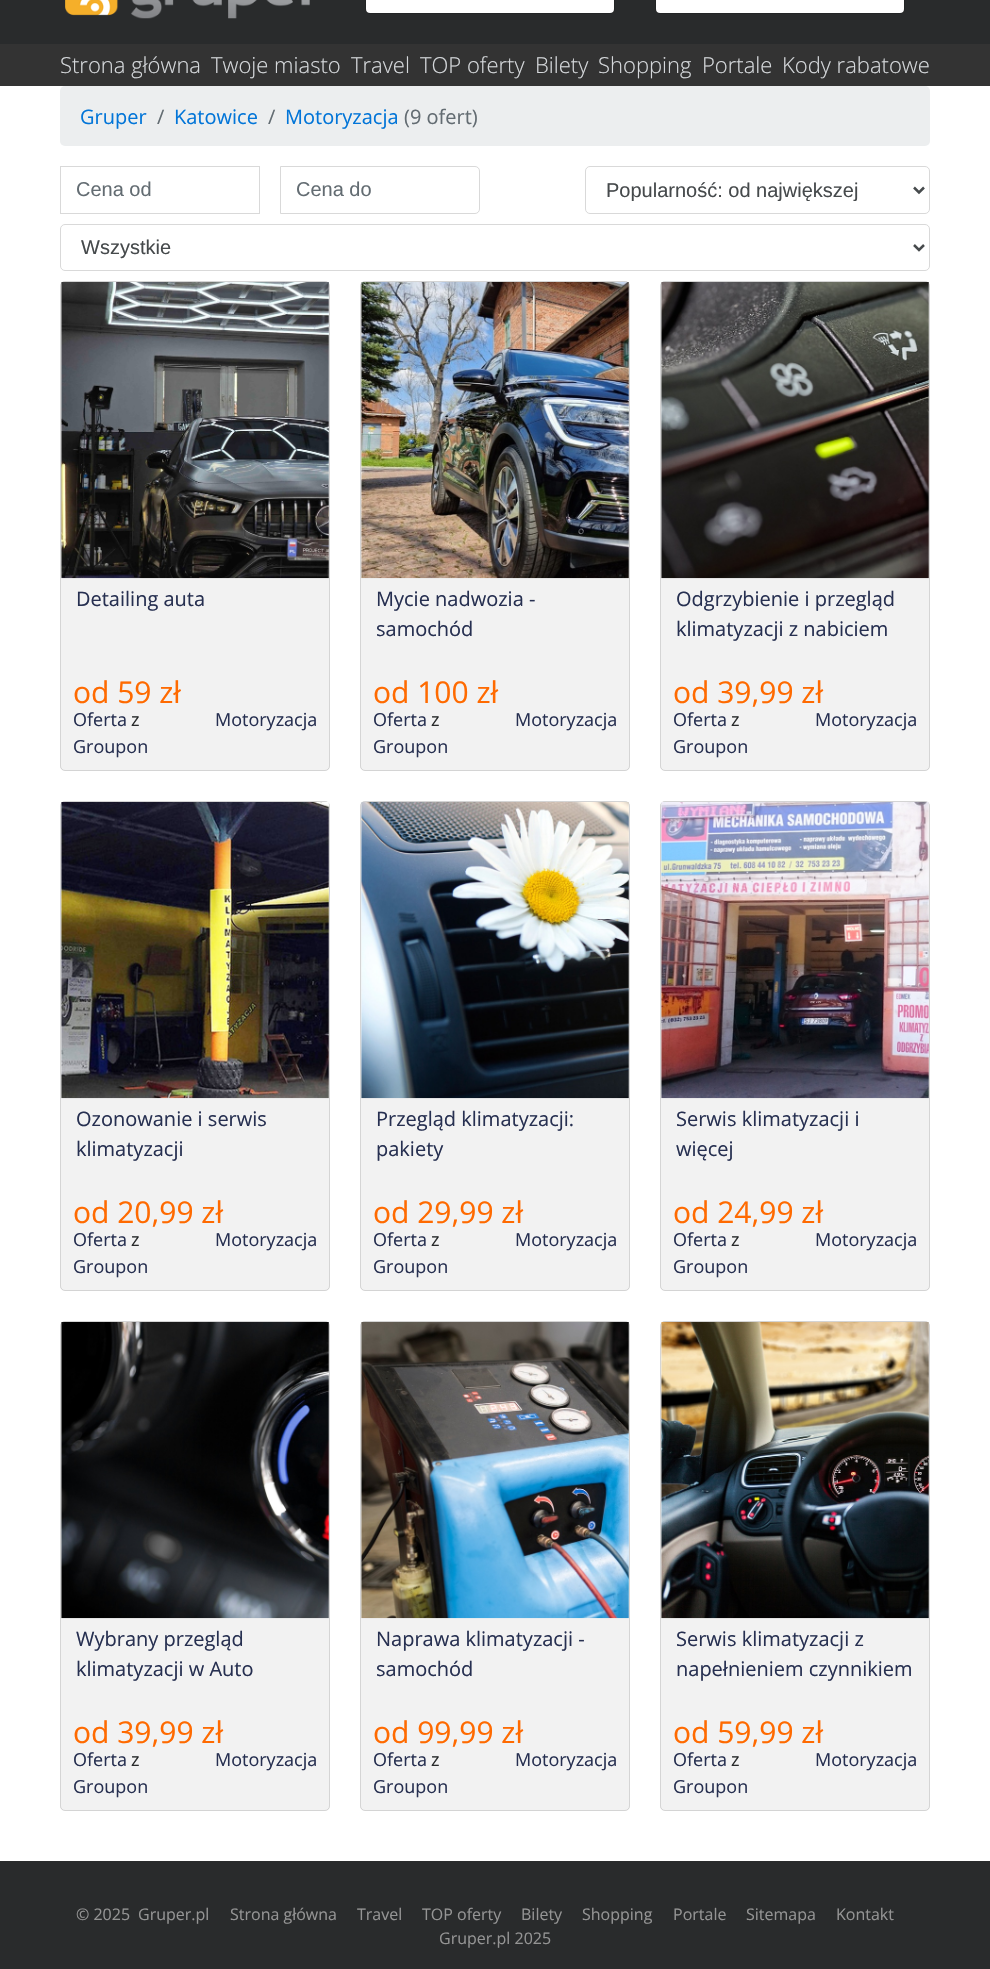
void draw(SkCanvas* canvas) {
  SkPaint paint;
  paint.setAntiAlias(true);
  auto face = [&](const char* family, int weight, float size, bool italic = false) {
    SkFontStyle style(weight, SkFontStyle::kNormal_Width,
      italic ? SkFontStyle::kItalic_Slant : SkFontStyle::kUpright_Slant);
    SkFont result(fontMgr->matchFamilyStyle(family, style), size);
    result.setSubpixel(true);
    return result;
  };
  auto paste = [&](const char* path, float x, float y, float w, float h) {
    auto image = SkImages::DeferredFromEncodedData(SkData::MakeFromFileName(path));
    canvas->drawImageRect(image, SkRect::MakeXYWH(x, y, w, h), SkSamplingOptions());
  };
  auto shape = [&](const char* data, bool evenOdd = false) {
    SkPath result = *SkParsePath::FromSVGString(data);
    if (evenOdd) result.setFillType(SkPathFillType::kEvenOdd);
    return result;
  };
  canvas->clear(0xffffffff);
  paint.setColor(0xff292b2c);
  canvas->drawRect(SkRect::MakeXYWH(0, 0, 990, 44), paint);
  paste("img/1.png", 65, 0, 245, 19);
  paint.setColor(0xffffffff);
  canvas->drawRoundRect(SkRect::MakeXYWH(366, -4, 248, 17), 4, 4, paint);
  paint.setStroke(true);
  paint.setStrokeWidth(1);
  paint.setColor(0x26000000);
  canvas->drawRoundRect(SkRect::MakeXYWH(365.5f, -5.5f, 249, 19), 4.5f, 4.5f, paint);
  paint.setStroke(false);
  paint.setColor(0xffffffff);
  canvas->drawRoundRect(SkRect::MakeXYWH(656, -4, 248, 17), 4, 4, paint);
  paint.setStroke(true);
  paint.setColor(0x26000000);
  canvas->drawRoundRect(SkRect::MakeXYWH(655.5f, -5.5f, 249, 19), 4.5f, 4.5f, paint);
  paint.setStroke(false);
  paint.setColor(0xff333333);
  canvas->drawRect(SkRect::MakeXYWH(0, 44, 990, 42), paint);
  paint.setColor(0xffeceeef);
  canvas->drawRoundRect(SkRect::MakeXYWH(60, 86, 870, 60), 5, 5, paint);
  paint.setStroke(true);
  paint.setColor(0xffd9d9d9);
  canvas->drawRect(SkRect::MakeXYWH(60.5f, 166.5f, 199, 47), paint);
  canvas->drawPath(shape("M280.5 166.5H475C477.5 166.5 479.5 168.5 479.5 171V209C479.5 211.5 477.5 213.5 475 213.5H280.5Z"), paint);
  canvas->drawRoundRect(SkRect::MakeXYWH(585.5f, 166.5f, 344, 47), 4.5f, 4.5f, paint);
  paint.setStrokeWidth(2.5f);
  paint.setColor(0xff464a4c);
  canvas->drawPath(shape("M914 187.5L919 192.5L924 187.5"), paint);
  paint.setStrokeWidth(1);
  paint.setColor(0xffd9d9d9);
  canvas->drawRoundRect(SkRect::MakeXYWH(60.5f, 224.5f, 869, 46), 4.5f, 4.5f, paint);
  paint.setStrokeWidth(2.5f);
  paint.setColor(0xff464a4c);
  canvas->drawPath(shape("M914 245L919 250L924 245"), paint);
  paint.setStroke(false);
  paint.setColor(0xfff2f2f2);
  canvas->drawRoundRect(SkRect::MakeXYWH(60, 281, 270, 490), 5, 5, paint);
  paint.setStroke(true);
  paint.setStrokeWidth(1);
  paint.setColor(0x1f000000);
  canvas->drawRoundRect(SkRect::MakeXYWH(60.5f, 281.5f, 269, 489), 4.5f, 4.5f, paint);
  paste("img/2.png", 61, 282, 268, 297);
  paint.setStroke(false);
  paint.setColor(0xfff2f2f2);
  canvas->drawRoundRect(SkRect::MakeXYWH(360, 281, 270, 490), 5, 5, paint);
  paint.setStroke(true);
  paint.setColor(0x1f000000);
  canvas->drawRoundRect(SkRect::MakeXYWH(360.5f, 281.5f, 269, 489), 4.5f, 4.5f, paint);
  paste("img/3.png", 361, 282, 268, 297);
  paint.setStroke(false);
  paint.setColor(0xfff2f2f2);
  canvas->drawRoundRect(SkRect::MakeXYWH(660, 281, 270, 490), 5, 5, paint);
  paint.setStroke(true);
  paint.setColor(0x1f000000);
  canvas->drawRoundRect(SkRect::MakeXYWH(660.5f, 281.5f, 269, 489), 4.5f, 4.5f, paint);
  paste("img/4.png", 661, 282, 268, 297);
  paint.setStroke(false);
  paint.setColor(0xfff2f2f2);
  canvas->drawRoundRect(SkRect::MakeXYWH(60, 801, 270, 490), 5, 5, paint);
  paint.setStroke(true);
  paint.setColor(0x1f000000);
  canvas->drawRoundRect(SkRect::MakeXYWH(60.5f, 801.5f, 269, 489), 4.5f, 4.5f, paint);
  paste("img/5.png", 61, 802, 268, 297);
  paint.setStroke(false);
  paint.setColor(0xfff2f2f2);
  canvas->drawRoundRect(SkRect::MakeXYWH(360, 801, 270, 490), 5, 5, paint);
  paint.setStroke(true);
  paint.setColor(0x1f000000);
  canvas->drawRoundRect(SkRect::MakeXYWH(360.5f, 801.5f, 269, 489), 4.5f, 4.5f, paint);
  paste("img/6.png", 361, 802, 268, 297);
  paint.setStroke(false);
  paint.setColor(0xfff2f2f2);
  canvas->drawRoundRect(SkRect::MakeXYWH(660, 801, 270, 490), 5, 5, paint);
  paint.setStroke(true);
  paint.setColor(0x1f000000);
  canvas->drawRoundRect(SkRect::MakeXYWH(660.5f, 801.5f, 269, 489), 4.5f, 4.5f, paint);
  paste("img/7.png", 661, 802, 268, 297);
  paint.setStroke(false);
  paint.setColor(0xfff2f2f2);
  canvas->drawRoundRect(SkRect::MakeXYWH(60, 1321, 270, 490), 5, 5, paint);
  paint.setStroke(true);
  paint.setColor(0x1f000000);
  canvas->drawRoundRect(SkRect::MakeXYWH(60.5f, 1321.5f, 269, 489), 4.5f, 4.5f, paint);
  paste("img/8.png", 61, 1322, 268, 297);
  paint.setStroke(false);
  paint.setColor(0xfff2f2f2);
  canvas->drawRoundRect(SkRect::MakeXYWH(360, 1321, 270, 490), 5, 5, paint);
  paint.setStroke(true);
  paint.setColor(0x1f000000);
  canvas->drawRoundRect(SkRect::MakeXYWH(360.5f, 1321.5f, 269, 489), 4.5f, 4.5f, paint);
  paste("img/9.png", 361, 1322, 268, 297);
  paint.setStroke(false);
  paint.setColor(0xfff2f2f2);
  canvas->drawRoundRect(SkRect::MakeXYWH(660, 1321, 270, 490), 5, 5, paint);
  paint.setStroke(true);
  paint.setColor(0x1f000000);
  canvas->drawRoundRect(SkRect::MakeXYWH(660.5f, 1321.5f, 269, 489), 4.5f, 4.5f, paint);
  paste("img/10.png", 661, 1322, 268, 297);
  paint.setStroke(false);
  paint.setColor(0xff292b2c);
  canvas->drawRect(SkRect::MakeXYWH(0, 1861, 990, 108), paint);
  auto f0 = face("Open Sans", 300, 22);
  paint.setColor(0xffd5d8db);
  {
    const struct { const char* s; float x, y; } items[] = {
      {"Strona główna", 60, 73},
      {"Twoje miasto", 211, 73},
      {"Travel", 351, 73},
      {"TOP oferty", 420, 73},
      {"Bilety", 535, 73},
      {"Shopping", 598, 73},
      {"Portale", 702, 73},
      {"Kody rabatowe", 782, 73},
    };
    for (auto [s, x, y] : items) {
      canvas->drawString(s, x, y, f0, paint);
    }
  }
  auto f1 = face("Open Sans", 400, 20);
  paint.setColor(0xff0275d8);
  canvas->drawString("Gruper", 80, 124, f1, paint);
  paint.setColor(0xff636c72);
  canvas->drawString("/", 157, 124, f1, paint);
  paint.setColor(0xff0275d8);
  canvas->drawString("Katowice", 174, 124, f1, paint);
  paint.setColor(0xff636c72);
  canvas->drawString("/", 268, 124, f1, paint);
  paint.setColor(0xff0275d8);
  canvas->drawString("Motoryzacja", 285, 124, f1, paint);
  paint.setColor(0xff636c72);
  canvas->drawString("(9 ofert)", 404, 124, f1, paint);
  auto f2 = face("Liberation Sans", 400, 20);
  canvas->drawString("Cena od", 76, 196, f2, paint);
  canvas->drawString("Cena do", 296, 196, f2, paint);
  canvas->save();
  canvas->clipRect(SkRect::MakeXYWH(606, 178, 288, 23));
  paint.setColor(0xff464a4c);
  canvas->drawString("Popularność: od największej", 606, 197, f2, paint);
  canvas->restore();
  canvas->drawString("Wszystkie", 81, 254, f2, paint);
  paint.setColor(0xff273051);
  canvas->drawString("Detailing auta", 76, 606, f1, paint);
  auto f3 = face("Open Sans", 400, 30);
  paint.setColor(0xffff6a00);
  canvas->drawString("od 59 zł", 73, 703, f3, paint);
  auto f4 = face("Open Sans", 400, 18);
  paint.setColor(0xff273051);
  canvas->drawString("Oferta", 73, 726, f4, paint);
  paint.setColor(0xff292b2c);
  canvas->drawString("z", 131, 726, f4, paint);
  paint.setColor(0xff273051);
  canvas->drawString("Groupon", 73, 753, f4, paint);
  canvas->drawString("Motoryzacja", 215, 726, f4, paint);
  canvas->drawString("Mycie nadwozia -", 376, 606, f1, paint);
  canvas->drawString("samochód", 376, 636, f1, paint);
  paint.setColor(0xffff6a00);
  canvas->drawString("od 100 zł", 373, 703, f3, paint);
  paint.setColor(0xff273051);
  canvas->drawString("Oferta", 373, 726, f4, paint);
  paint.setColor(0xff292b2c);
  canvas->drawString("z", 431, 726, f4, paint);
  paint.setColor(0xff273051);
  canvas->drawString("Groupon", 373, 753, f4, paint);
  canvas->drawString("Motoryzacja", 515, 726, f4, paint);
  canvas->drawString("Odgrzybienie i przegląd", 676, 606, f1, paint);
  canvas->drawString("klimatyzacji z nabiciem", 676, 636, f1, paint);
  paint.setColor(0xffff6a00);
  canvas->drawString("od 39,99 zł", 673, 703, f3, paint);
  paint.setColor(0xff273051);
  canvas->drawString("Oferta", 673, 726, f4, paint);
  paint.setColor(0xff292b2c);
  canvas->drawString("z", 731, 726, f4, paint);
  paint.setColor(0xff273051);
  canvas->drawString("Groupon", 673, 753, f4, paint);
  canvas->drawString("Motoryzacja", 815, 726, f4, paint);
  canvas->drawString("Ozonowanie i serwis", 76, 1126, f1, paint);
  canvas->drawString("klimatyzacji", 76, 1156, f1, paint);
  paint.setColor(0xffff6a00);
  canvas->drawString("od 20,99 zł", 73, 1223, f3, paint);
  paint.setColor(0xff273051);
  canvas->drawString("Oferta", 73, 1246, f4, paint);
  paint.setColor(0xff292b2c);
  canvas->drawString("z", 131, 1246, f4, paint);
  paint.setColor(0xff273051);
  canvas->drawString("Groupon", 73, 1273, f4, paint);
  canvas->drawString("Motoryzacja", 215, 1246, f4, paint);
  canvas->drawString("Przegląd klimatyzacji:", 376, 1126, f1, paint);
  canvas->drawString("pakiety", 376, 1156, f1, paint);
  paint.setColor(0xffff6a00);
  canvas->drawString("od 29,99 zł", 373, 1223, f3, paint);
  paint.setColor(0xff273051);
  canvas->drawString("Oferta", 373, 1246, f4, paint);
  paint.setColor(0xff292b2c);
  canvas->drawString("z", 431, 1246, f4, paint);
  paint.setColor(0xff273051);
  canvas->drawString("Groupon", 373, 1273, f4, paint);
  canvas->drawString("Motoryzacja", 515, 1246, f4, paint);
  canvas->drawString("Serwis klimatyzacji i", 676, 1126, f1, paint);
  canvas->drawString("więcej", 676, 1156, f1, paint);
  paint.setColor(0xffff6a00);
  canvas->drawString("od 24,99 zł", 673, 1223, f3, paint);
  paint.setColor(0xff273051);
  canvas->drawString("Oferta", 673, 1246, f4, paint);
  paint.setColor(0xff292b2c);
  canvas->drawString("z", 731, 1246, f4, paint);
  paint.setColor(0xff273051);
  canvas->drawString("Groupon", 673, 1273, f4, paint);
  canvas->drawString("Motoryzacja", 815, 1246, f4, paint);
  canvas->drawString("Wybrany przegląd", 76, 1646, f1, paint);
  canvas->drawString("klimatyzacji w Auto", 76, 1676, f1, paint);
  paint.setColor(0xffff6a00);
  canvas->drawString("od 39,99 zł", 73, 1743, f3, paint);
  paint.setColor(0xff273051);
  canvas->drawString("Oferta", 73, 1766, f4, paint);
  paint.setColor(0xff292b2c);
  canvas->drawString("z", 131, 1766, f4, paint);
  paint.setColor(0xff273051);
  canvas->drawString("Groupon", 73, 1793, f4, paint);
  canvas->drawString("Motoryzacja", 215, 1766, f4, paint);
  canvas->drawString("Naprawa klimatyzacji -", 376, 1646, f1, paint);
  canvas->drawString("samochód", 376, 1676, f1, paint);
  paint.setColor(0xffff6a00);
  canvas->drawString("od 99,99 zł", 373, 1743, f3, paint);
  paint.setColor(0xff273051);
  canvas->drawString("Oferta", 373, 1766, f4, paint);
  paint.setColor(0xff292b2c);
  canvas->drawString("z", 431, 1766, f4, paint);
  paint.setColor(0xff273051);
  canvas->drawString("Groupon", 373, 1793, f4, paint);
  canvas->drawString("Motoryzacja", 515, 1766, f4, paint);
  canvas->drawString("Serwis klimatyzacji z", 676, 1646, f1, paint);
  canvas->drawString("napełnieniem czynnikiem", 676, 1676, f1, paint);
  paint.setColor(0xffff6a00);
  canvas->drawString("od 59,99 zł", 673, 1743, f3, paint);
  paint.setColor(0xff273051);
  canvas->drawString("Oferta", 673, 1766, f4, paint);
  paint.setColor(0xff292b2c);
  canvas->drawString("z", 731, 1766, f4, paint);
  paint.setColor(0xff273051);
  canvas->drawString("Groupon", 673, 1793, f4, paint);
  canvas->drawString("Motoryzacja", 815, 1766, f4, paint);
  auto f5 = face("Open Sans", 400, 16);
  paint.setColor(0xff949494);
  {
    const struct { const char* s; float x, y; } items[] = {
      {"© 2025", 76, 1920},
      {"Gruper.pl", 138, 1920},
      {"Strona główna", 230, 1920},
      {"Travel", 357, 1920},
      {"TOP oferty", 422, 1920},
      {"Bilety", 521, 1920},
      {"Shopping", 582, 1920},
      {"Portale", 673, 1920},
      {"Sitemapa", 746, 1920},
      {"Kontakt", 836, 1920},
      {"Gruper.pl 2025", 439, 1944},
    };
    for (auto [s, x, y] : items) {
      canvas->drawString(s, x, y, f5, paint);
    }
  }
}
